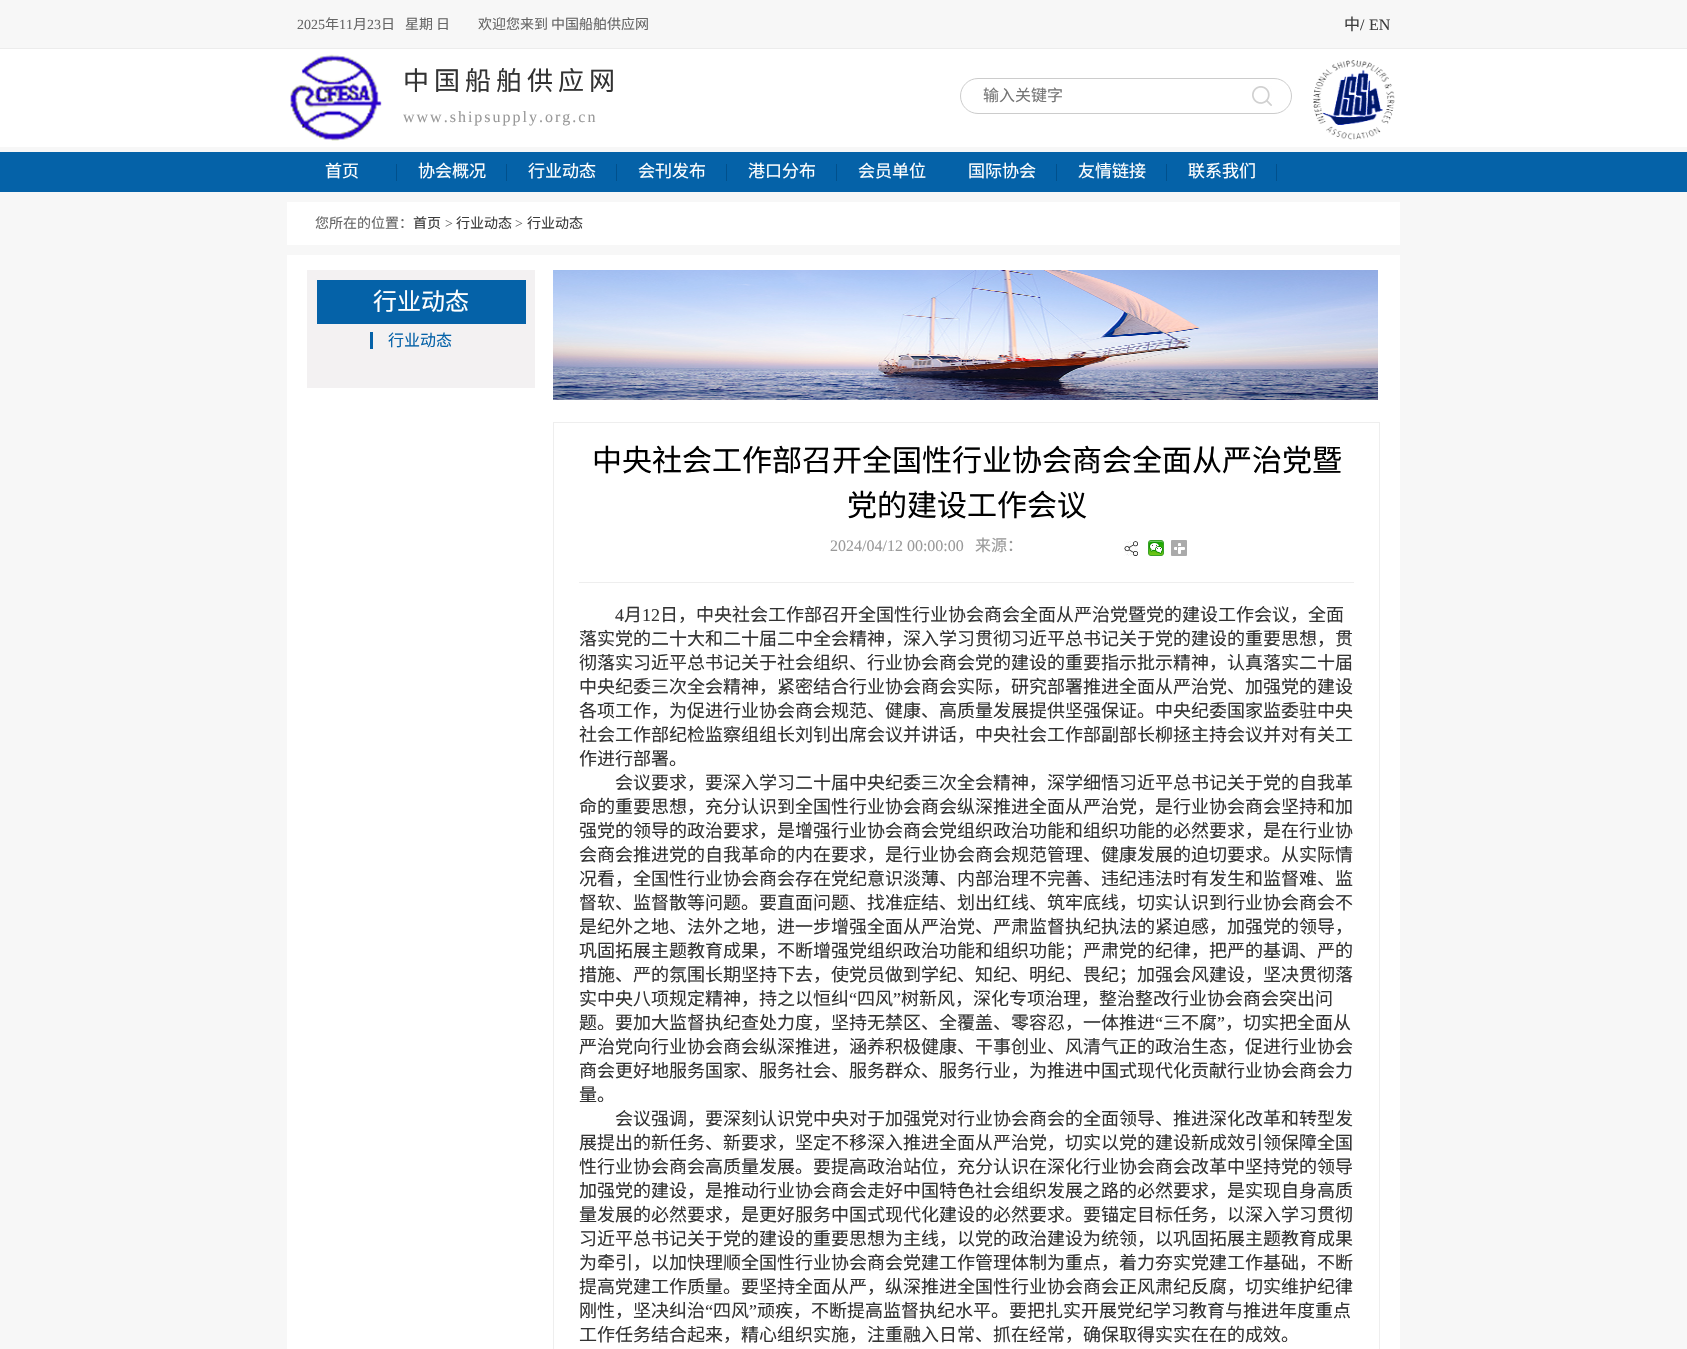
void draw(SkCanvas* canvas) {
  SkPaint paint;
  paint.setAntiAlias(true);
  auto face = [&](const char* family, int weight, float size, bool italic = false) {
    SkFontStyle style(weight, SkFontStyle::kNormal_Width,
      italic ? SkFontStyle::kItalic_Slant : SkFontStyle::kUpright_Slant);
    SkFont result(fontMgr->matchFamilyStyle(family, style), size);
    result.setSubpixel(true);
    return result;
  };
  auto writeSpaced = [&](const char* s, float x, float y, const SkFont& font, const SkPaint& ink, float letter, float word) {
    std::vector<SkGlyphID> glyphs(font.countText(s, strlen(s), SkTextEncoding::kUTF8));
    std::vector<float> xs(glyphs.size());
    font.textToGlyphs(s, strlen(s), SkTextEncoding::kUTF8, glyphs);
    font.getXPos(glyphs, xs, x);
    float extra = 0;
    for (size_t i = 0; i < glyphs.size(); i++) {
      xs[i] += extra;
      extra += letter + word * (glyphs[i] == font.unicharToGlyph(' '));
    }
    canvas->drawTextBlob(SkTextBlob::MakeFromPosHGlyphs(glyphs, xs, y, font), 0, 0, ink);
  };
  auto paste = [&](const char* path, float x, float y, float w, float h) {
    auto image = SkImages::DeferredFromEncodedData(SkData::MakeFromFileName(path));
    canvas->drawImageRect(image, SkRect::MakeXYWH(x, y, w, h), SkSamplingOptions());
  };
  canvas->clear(0xfff7f7f7);
  paint.setColor(0xffececec);
  canvas->drawRect(SkRect::MakeXYWH(0, 48, 1687, 1), paint);
  paint.setColor(0xffffffff);
  canvas->drawRect(SkRect::MakeXYWH(0, 49, 1687, 98), paint);
  paste("img/1.png", 290, 54, 92, 87);
  paint.setStroke(true);
  paint.setStrokeWidth(1);
  paint.setColor(0xffcccccc);
  canvas->drawRoundRect(SkRect::MakeXYWH(960.5f, 78.5f, 331, 35), 17.5f, 17.5f, paint);
  paste("img/2.png", 1252, 86, 20, 20);
  paste("img/3.png", 1313, 60, 82, 80);
  paint.setStroke(false);
  {
    const struct { float x, y, w, h; SkColor color; } items[] = {
      {0, 152, 1687, 40, 0xff0562a8},
      {396, 164, 1, 17, 0xff01508c},
      {506, 164, 1, 17, 0xff01508c},
      {616, 164, 1, 17, 0xff01508c},
      {726, 164, 1, 17, 0xff01508c},
      {836, 164, 1, 17, 0xff01508c},
      {1056, 164, 1, 17, 0xff01508c},
      {1166, 164, 1, 17, 0xff01508c},
      {1276, 164, 1, 17, 0xff01508c},
      {287, 202, 1113, 43, 0xffffffff},
      {287, 255, 1113, 1094, 0xffffffff},
      {307, 270, 228, 118, 0xfff3f1f2},
      {317, 280, 209, 44, 0xff0562a8},
      {370, 332, 3, 17, 0xff0562a8},
    };
    for (auto [x, y, w, h, color] : items) {
      paint.setColor(color);
      canvas->drawRect(SkRect::MakeXYWH(x, y, w, h), paint);
    }
  }
  paste("img/4.png", 553, 270, 825, 130);
  paint.setStroke(true);
  paint.setColor(0xffeeeeee);
  canvas->drawRect(SkRect::MakeXYWH(553.5f, 422.5f, 826, 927), paint);
  paint.setStroke(false);
  canvas->drawRect(SkRect::MakeXYWH(579, 582, 775, 1), paint);
  paste("img/5.png", 1124, 541, 14, 15);
  paste("img/6.png", 1148, 540, 16, 16);
  paste("img/7.png", 1171, 540, 16, 16);
  auto f0 = face("Liberation Serif", 400, 14);
  paint.setColor(0xff666666);
  canvas->drawString("2025", 297, 29, f0, paint);
  auto f1 = face("Noto Sans CJK SC", 400, 14);
  canvas->drawString("年", 325, 29, f1, paint);
  canvas->drawString("11", 339, 29, f0, paint);
  canvas->drawString("月", 353, 29, f1, paint);
  canvas->drawString("23", 367, 29, f0, paint);
  {
    const struct { const char* s; float x, y; } items[] = {
      {"日", 381, 29},
      {"星期", 405, 29},
      {"日", 436, 29},
      {"欢迎您来到", 478, 29},
      {"中国船舶供应网", 551, 29},
    };
    for (auto [s, x, y] : items) {
      canvas->drawString(s, x, y, f1, paint);
    }
  }
  auto f2 = face("Noto Sans CJK SC", 400, 16);
  paint.setColor(0xff3c3c3c);
  canvas->drawString("中", 1344, 30, f2, paint);
  auto f3 = face("Liberation Serif", 400, 16);
  paint.setColor(0xff333333);
  canvas->drawString("/", 1360, 30, f3, paint);
  paint.setColor(0xff3c3c3c);
  canvas->drawString("EN", 1369, 30, f3, paint);
  auto f4 = face("Noto Sans CJK SC", 400, 26);
  paint.setColor(0xff333333);
  writeSpaced("中国船舶供应网", 403, 90, f4, paint, 5, 0);
  paint.setColor(0xff999999);
  writeSpaced("www.shipsupply.org.cn", 403, 122, f3, paint, 2, 0);
  paint.setColor(0xff757575);
  canvas->drawString("输入关键字", 983, 101, f2, paint);
  auto f5 = face("Noto Sans CJK SC", 400, 17);
  paint.setColor(0xffffffff);
  {
    const struct { const char* s; float x, y; } items[] = {
      {"首页", 325, 177},
      {"协会概况", 418, 177},
      {"行业动态", 528, 177},
      {"会刊发布", 638, 177},
      {"港口分布", 748, 177},
      {"会员单位", 858, 177},
      {"国际协会", 968, 177},
      {"友情链接", 1078, 177},
      {"联系我们", 1188, 177},
    };
    for (auto [s, x, y] : items) {
      canvas->drawString(s, x, y, f5, paint);
    }
  }
  paint.setColor(0xff666666);
  canvas->drawString("您所在的位置：", 315, 228, f1, paint);
  paint.setColor(0xff3c3c3c);
  canvas->drawString("首页", 413, 228, f1, paint);
  paint.setColor(0xff666666);
  canvas->drawString(">", 445, 228, f0, paint);
  paint.setColor(0xff3c3c3c);
  canvas->drawString("行业动态", 456, 228, f1, paint);
  paint.setColor(0xff666666);
  canvas->drawString(">", 515, 228, f0, paint);
  paint.setColor(0xff3c3c3c);
  canvas->drawString("行业动态", 527, 228, f1, paint);
  auto f6 = face("Noto Sans CJK SC", 400, 24);
  paint.setColor(0xffffffff);
  canvas->drawString("行业动态", 373, 310, f6, paint);
  paint.setColor(0xff0562a8);
  canvas->drawString("行业动态", 388, 346, f2, paint);
  auto f7 = face("Noto Sans CJK SC", 400, 30);
  paint.setColor(0xff000000);
  canvas->drawString("中央社会工作部召开全国性行业协会商会全面从严治党暨", 592, 471, f7, paint);
  canvas->drawString("党的建设工作会议", 847, 516, f7, paint);
  paint.setColor(0xff999999);
  canvas->drawString("2024/04/12 00:00:00", 830, 551, f3, paint);
  canvas->drawString("来源：", 975, 551, f2, paint);
  auto f8 = face("Liberation Serif", 400, 18);
  paint.setColor(0xff333333);
  canvas->drawString("4", 615, 621, f8, paint);
  auto f9 = face("Noto Sans CJK SC", 400, 18);
  canvas->drawString("月", 624, 621, f9, paint);
  canvas->drawString("12", 642, 621, f8, paint);
  {
    const struct { const char* s; float x, y; } items[] = {
      {"日，中央社会工作部召开全国性行业协会商会全面从严治党暨党的建设工作会议，全面", 660, 621},
      {"落实党的二十大和二十届二中全会精神，深入学习贯彻习近平总书记关于党的建设的重要思想，贯", 579, 645},
      {"彻落实习近平总书记关于社会组织、行业协会商会党的建设的重要指示批示精神，认真落实二十届", 579, 669},
      {"中央纪委三次全会精神，紧密结合行业协会商会实际，研究部署推进全面从严治党、加强党的建设", 579, 693},
      {"各项工作，为促进行业协会商会规范、健康、高质量发展提供坚强保证。中央纪委国家监委驻中央", 579, 717},
      {"社会工作部纪检监察组组长刘钊出席会议并讲话，中央社会工作部副部长柳拯主持会议并对有关工", 579, 741},
      {"作进行部署。", 579, 765},
      {"会议要求，要深入学习二十届中央纪委三次全会精神，深学细悟习近平总书记关于党的自我革", 615, 789},
      {"命的重要思想，充分认识到全国性行业协会商会纵深推进全面从严治党，是行业协会商会坚持和加", 579, 813},
      {"强党的领导的政治要求，是增强行业协会商会党组织政治功能和组织功能的必然要求，是在行业协", 579, 837},
      {"会商会推进党的自我革命的内在要求，是行业协会商会规范管理、健康发展的迫切要求。从实际情", 579, 861},
      {"况看，全国性行业协会商会存在党纪意识淡薄、内部治理不完善、违纪违法时有发生和监督难、监", 579, 885},
      {"督软、监督散等问题。要直面问题、找准症结、划出红线、筑牢底线，切实认识到行业协会商会不", 579, 909},
      {"是纪外之地、法外之地，进一步增强全面从严治党、严肃监督执纪执法的紧迫感，加强党的领导，", 579, 933},
      {"巩固拓展主题教育成果，不断增强党组织政治功能和组织功能；严肃党的纪律，把严的基调、严的", 579, 957},
      {"措施、严的氛围长期坚持下去，使党员做到学纪、知纪、明纪、畏纪；加强会风建设，坚决贯彻落", 579, 981},
      {"实中央八项规定精神，持之以恒纠", 579, 1005},
    };
    for (auto [s, x, y] : items) {
      canvas->drawString(s, x, y, f9, paint);
    }
  }
  canvas->drawString("“", 849, 1005, f8, paint);
  canvas->drawString("四风", 857, 1005, f9, paint);
  canvas->drawString("”", 893, 1005, f8, paint);
  canvas->drawString("树新风，深化专项治理，整治整改行业协会商会突出问", 901, 1005, f9, paint);
  canvas->drawString("题。要加大监督执纪查处力度，坚持无禁区、全覆盖、零容忍，一体推进", 579, 1029, f9, paint);
  canvas->drawString("“", 1155, 1029, f8, paint);
  canvas->drawString("三不腐", 1163, 1029, f9, paint);
  canvas->drawString("”", 1217, 1029, f8, paint);
  {
    const struct { const char* s; float x, y; } items[] = {
      {"，切实把全面从", 1225, 1029},
      {"严治党向行业协会商会纵深推进，涵养积极健康、干事创业、风清气正的政治生态，促进行业协会", 579, 1053},
      {"商会更好地服务国家、服务社会、服务群众、服务行业，为推进中国式现代化贡献行业协会商会力", 579, 1077},
      {"量。", 579, 1101},
      {"会议强调，要深刻认识党中央对于加强党对行业协会商会的全面领导、推进深化改革和转型发", 615, 1125},
      {"展提出的新任务、新要求，坚定不移深入推进全面从严治党，切实以党的建设新成效引领保障全国", 579, 1149},
      {"性行业协会商会高质量发展。要提高政治站位，充分认识在深化行业协会商会改革中坚持党的领导", 579, 1173},
      {"加强党的建设，是推动行业协会商会走好中国特色社会组织发展之路的必然要求，是实现自身高质", 579, 1197},
      {"量发展的必然要求，是更好服务中国式现代化建设的必然要求。要锚定目标任务，以深入学习贯彻", 579, 1221},
      {"习近平总书记关于党的建设的重要思想为主线，以党的政治建设为统领，以巩固拓展主题教育成果", 579, 1245},
      {"为牵引，以加快理顺全国性行业协会商会党建工作管理体制为重点，着力夯实党建工作基础，不断", 579, 1269},
      {"提高党建工作质量。要坚持全面从严，纵深推进全国性行业协会商会正风肃纪反腐，切实维护纪律", 579, 1293},
      {"刚性，坚决纠治", 579, 1317},
    };
    for (auto [s, x, y] : items) {
      canvas->drawString(s, x, y, f9, paint);
    }
  }
  canvas->drawString("“", 705, 1317, f8, paint);
  canvas->drawString("四风", 713, 1317, f9, paint);
  canvas->drawString("”", 749, 1317, f8, paint);
  canvas->drawString("顽疾，不断提高监督执纪水平。要把扎实开展党纪学习教育与推进年度重点", 757, 1317, f9, paint);
  canvas->drawString("工作任务结合起来，精心组织实施，注重融入日常、抓在经常，确保取得实实在在的成效。", 579, 1341, f9, paint);
}
